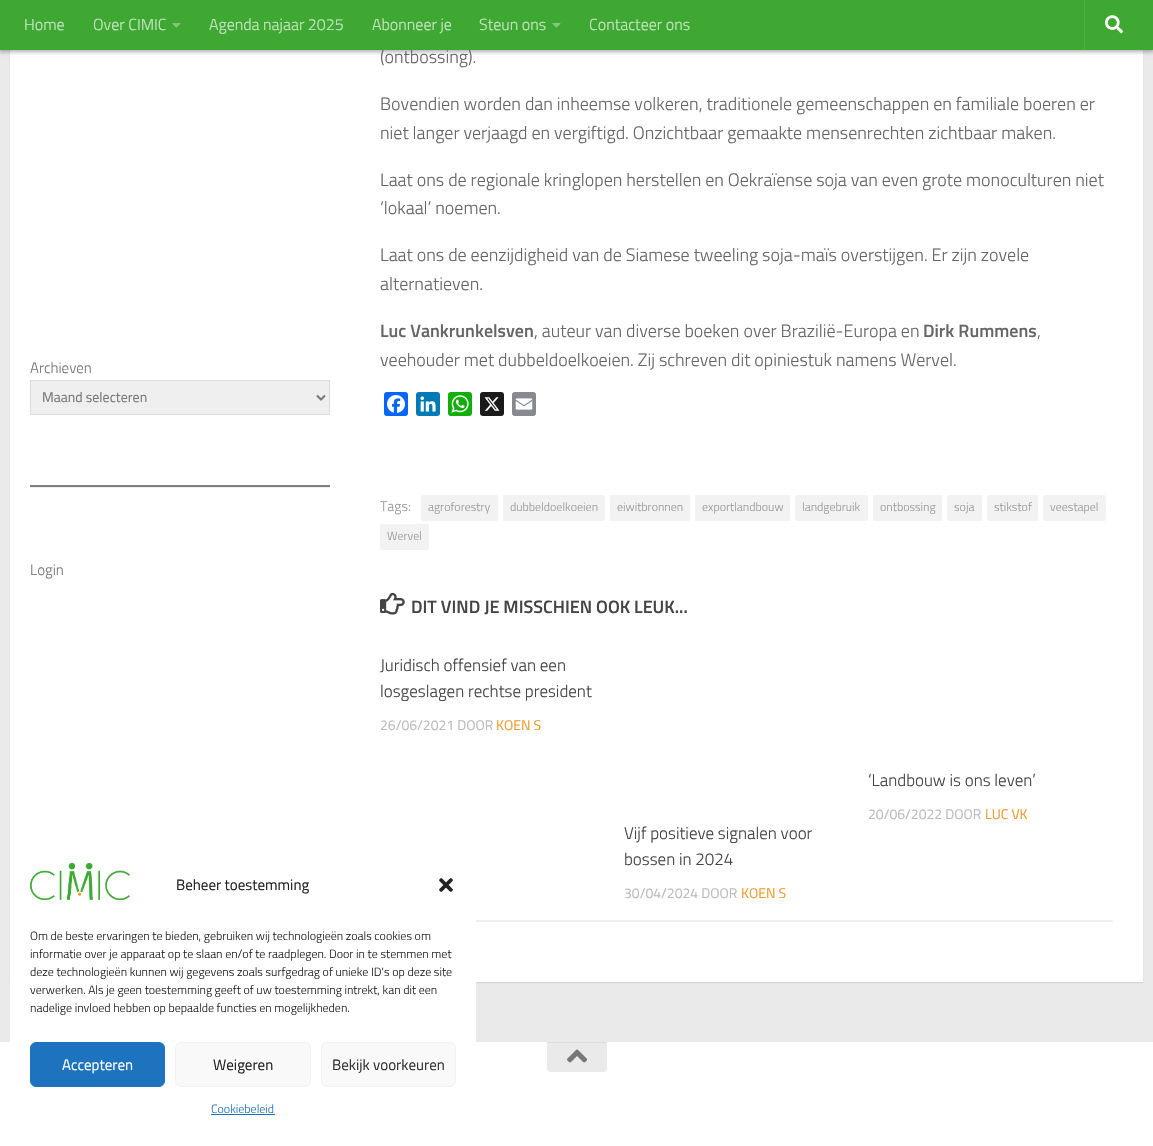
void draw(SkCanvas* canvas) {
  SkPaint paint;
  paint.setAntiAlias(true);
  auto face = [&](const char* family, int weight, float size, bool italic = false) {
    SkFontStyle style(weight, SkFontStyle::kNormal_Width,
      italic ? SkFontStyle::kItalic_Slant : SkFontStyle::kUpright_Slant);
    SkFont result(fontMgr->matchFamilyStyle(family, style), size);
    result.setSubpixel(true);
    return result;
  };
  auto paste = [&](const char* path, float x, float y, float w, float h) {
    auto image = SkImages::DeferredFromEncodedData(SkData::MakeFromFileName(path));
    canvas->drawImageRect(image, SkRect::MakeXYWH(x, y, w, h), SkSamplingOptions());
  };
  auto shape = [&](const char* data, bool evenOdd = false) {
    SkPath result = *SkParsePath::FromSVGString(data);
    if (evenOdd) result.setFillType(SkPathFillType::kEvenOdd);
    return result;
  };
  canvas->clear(0xffeaeaea);
  paint.setColor(0x1a000000);
  paint.setMaskFilter(SkMaskFilter::MakeBlur(kNormal_SkBlurStyle, 0.5f));
  canvas->drawRect(SkRect::MakeXYWH(10, -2, 1133, 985), paint);
  paint.setMaskFilter(nullptr);
  paint.setColor(0xffffffff);
  canvas->drawRect(SkRect::MakeXYWH(10, 50, 1133, 932), paint);
  paint.setColor(0x4d000000);
  paint.setMaskFilter(SkMaskFilter::MakeBlur(kNormal_SkBlurStyle, 2));
  canvas->drawRect(SkRect::MakeXYWH(-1, 0, 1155, 52), paint);
  paint.setMaskFilter(nullptr);
  paint.setColor(0xffefefef);
  canvas->drawRect(SkRect::MakeXYWH(30.5f, 380.5f, 299, 34), paint);
  paint.setStroke(true);
  paint.setStrokeWidth(1);
  paint.setColor(0xffdddddd);
  canvas->drawRect(SkRect::MakeXYWH(30.5f, 380.5f, 299, 34), paint);
  paint.setStrokeWidth(2);
  paint.setColor(0xff777777);
  canvas->drawPath(shape("M317 395.5L321 399.5L325 395.5"), paint);
  paint.setStroke(false);
  paint.setColor(0xffeeeeee);
  canvas->drawRect(SkRect::MakeXYWH(30, 487, 300, 1), paint);
  paint.setColor(0xff808080);
  canvas->drawRect(SkRect::MakeXYWH(30, 485, 300, 2), paint);
  paint.setColor(0xff0866ff);
  canvas->drawRoundRect(SkRect::MakeXYWH(384, 392, 24, 24), 3, 3, paint);
  paste("img/3.png", 387, 395, 18, 18);
  paint.setColor(0xff007bb5);
  canvas->drawRoundRect(SkRect::MakeXYWH(416, 392, 24, 24), 3, 3, paint);
  paste("img/4.png", 420, 396, 16, 16);
  paint.setColor(0xff12af0a);
  canvas->drawRoundRect(SkRect::MakeXYWH(448, 392, 24, 24), 3, 3, paint);
  paste("img/5.png", 451, 395, 18, 18);
  paint.setColor(0xff1a1a1a);
  canvas->drawRoundRect(SkRect::MakeXYWH(480, 392, 24, 24), 3, 3, paint);
  paste("img/6.png", 484, 397, 16, 14);
  paint.setColor(0xff888990);
  canvas->drawRoundRect(SkRect::MakeXYWH(512, 392, 24, 24), 3, 3, paint);
  paste("img/7.png", 515, 398, 18, 12);
  paint.setColor(0xfff2f2f2);
  canvas->drawRoundRect(SkRect::MakeXYWH(421, 495, 77, 26), 2, 2, paint);
  canvas->drawRoundRect(SkRect::MakeXYWH(503, 495, 102, 26), 2, 2, paint);
  canvas->drawRoundRect(SkRect::MakeXYWH(610, 495, 80, 26), 2, 2, paint);
  canvas->drawRoundRect(SkRect::MakeXYWH(695, 495, 95, 26), 2, 2, paint);
  canvas->drawRoundRect(SkRect::MakeXYWH(795, 495, 73, 26), 2, 2, paint);
  canvas->drawRoundRect(SkRect::MakeXYWH(873, 495, 69, 26), 2, 2, paint);
  canvas->drawRoundRect(SkRect::MakeXYWH(947, 495, 35, 26), 2, 2, paint);
  canvas->drawRoundRect(SkRect::MakeXYWH(987, 495, 51, 26), 2, 2, paint);
  canvas->drawRoundRect(SkRect::MakeXYWH(1043, 495, 63, 26), 2, 2, paint);
  canvas->drawRoundRect(SkRect::MakeXYWH(380, 524, 49, 26), 2, 2, paint);
  paste("img/8.png", 380, 592, 25, 23);
  paint.setColor(0xffeeeeee);
  canvas->drawRect(SkRect::MakeXYWH(476, 920, 637, 2), paint);
  paint.setColor(0xffffffff);
  canvas->drawRect(SkRect::MakeXYWH(0, 1042, 1153, 104), paint);
  paint.setColor(0xffeaeaea);
  canvas->drawPath(shape("M547 1042H607V1069C607 1070.5 605.5 1072 604 1072H550C548.5 1072 547 1070.5 547 1069Z"), paint);
  paint.setColor(0xffdedede);
  canvas->drawRect(SkRect::MakeXYWH(547, 1042, 60, 1), paint);
  paste("img/9.png", 567, 1049, 20, 14);
  paint.setColor(0xffffffff);
  canvas->drawRoundRect(SkRect::MakeXYWH(10, 848, 466, 288), 12, 12, paint);
  paste("img/10.png", 30, 862, 100, 38);
  paste("img/11.png", 439, 878, 14, 14);
  paint.setColor(0xff1e73be);
  canvas->drawRoundRect(SkRect::MakeXYWH(30.5f, 1042.5f, 134, 44), 5.5f, 5.5f, paint);
  paint.setStroke(true);
  paint.setStrokeWidth(1);
  canvas->drawRoundRect(SkRect::MakeXYWH(30.5f, 1042.5f, 134, 44), 5.5f, 5.5f, paint);
  paint.setStroke(false);
  paint.setColor(0xfff9f9f9);
  canvas->drawRoundRect(SkRect::MakeXYWH(175.5f, 1042.5f, 135, 44), 5.5f, 5.5f, paint);
  paint.setStroke(true);
  paint.setColor(0xfff2f2f2);
  canvas->drawRoundRect(SkRect::MakeXYWH(175.5f, 1042.5f, 135, 44), 5.5f, 5.5f, paint);
  paint.setStroke(false);
  paint.setColor(0xfff9f9f9);
  canvas->drawRoundRect(SkRect::MakeXYWH(321.5f, 1042.5f, 134, 44), 5.5f, 5.5f, paint);
  paint.setStroke(true);
  paint.setColor(0xfff2f2f2);
  canvas->drawRoundRect(SkRect::MakeXYWH(321.5f, 1042.5f, 134, 44), 5.5f, 5.5f, paint);
  paint.setStroke(false);
  paint.setColor(0xff1e73be);
  canvas->drawRect(SkRect::MakeXYWH(211, 1114, 64, 1), paint);
  auto f0 = face("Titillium", 300, 15);
  paint.setColor(0xff777777);
  canvas->drawString("Archieven", 30, 373, f0, paint);
  auto f1 = face("Titillium", 400, 14);
  canvas->drawString("Maand selecteren", 42, 402, f1, paint);
  canvas->drawString("Login", 30, 575, f0, paint);
  auto f2 = face("Titillium", 300, 18);
  paint.setColor(0xff666666);
  canvas->drawString("(ontbossing).", 380, 63, f2, paint);
  paint.setColor(0xff3ea832);
  canvas->drawRect(SkRect::MakeXYWH(0, 0, 1153, 50), paint);
  paste("img/2.png", 1105, 15, 18, 19);
  paint.setColor(0xff51b147);
  canvas->drawRect(SkRect::MakeXYWH(1084, 0, 1, 50), paint);
  auto f3 = face("Titillium", 300, 16);
  paint.setColor(0xffc5e5c2);
  canvas->drawString("Contacteer ons", 589, 30, f3, paint);
  paste("img/1.png", 552, 23, 9, 5);
  {
    const struct { const char* s; float x, y; } items[] = {
      {"Steun ons", 479, 30},
      {"Abonneer je", 372, 30},
      {"Agenda najaar 2025", 209, 30},
    };
    for (auto [s, x, y] : items) {
      canvas->drawString(s, x, y, f3, paint);
    }
  }
  paste("img/1.png", 172, 23, 9, 5);
  canvas->drawString("Over CIMIC", 93, 30, f3, paint);
  canvas->drawString("Home", 24, 30, f3, paint);
  paint.setColor(0xff666666);
  {
    const struct { const char* s; float x, y; } items[] = {
      {"Bovendien worden dan inheemse volkeren, traditionele gemeenschappen en familiale boeren er", 380, 110},
      {"niet langer verjaagd en vergiftigd. Onzichtbaar gemaakte mensenrechten zichtbaar maken.", 380, 139},
      {"Laat ons de regionale kringlopen herstellen en Oekraïense soja van even grote monoculturen niet", 380, 186},
      {"‘lokaal’ noemen.", 380, 214},
      {"Laat ons de eenzijdigheid van de Siamese tweeling soja-maïs overstijgen. Er zijn zovele", 380, 261},
      {"alternatieven.", 380, 290},
    };
    for (auto [s, x, y] : items) {
      canvas->drawString(s, x, y, f2, paint);
    }
  }
  auto f4 = face("Titillium", 600, 18);
  canvas->drawString("Luc Vankrunkelsven", 380, 337, f4, paint);
  canvas->drawString(", auteur van diverse boeken over Brazilië-Europa en", 534, 337, f2, paint);
  canvas->drawString("Dirk Rummens", 923, 337, f4, paint);
  canvas->drawString(",", 1037, 337, f2, paint);
  canvas->drawString("veehouder met dubbeldoelkoeien. Zij schreven dit opiniestuk namens Wervel.", 380, 366, f2, paint);
  auto f5 = face("Titillium", 300, 14);
  paint.setColor(0xff999999);
  canvas->drawString("Tags:", 380, 511, f5, paint);
  auto f6 = face("Titillium", 300, 12);
  {
    const struct { const char* s; float x, y; } items[] = {
      {"agroforestry", 428, 511},
      {"dubbeldoelkoeien", 510, 511},
      {"eiwitbronnen", 617, 511},
      {"exportlandbouw", 702, 511},
      {"landgebruik", 802, 511},
      {"ontbossing", 880, 511},
      {"soja", 954, 511},
      {"stikstof", 994, 511},
      {"veestapel", 1050, 511},
      {"Wervel", 387, 540},
    };
    for (auto [s, x, y] : items) {
      canvas->drawString(s, x, y, f6, paint);
    }
  }
  paint.setColor(0xff444444);
  canvas->drawString("DIT VIND JE MISSCHIEN OOK LEUK...", 411, 613, f4, paint);
  auto f7 = face("Titillium", 300, 17);
  canvas->drawString("Juridisch offensief van een", 380, 671, f7, paint);
  canvas->drawString("losgeslagen rechtse president", 380, 697, f7, paint);
  paint.setColor(0xffbbbbbb);
  canvas->drawString("26/06/2021 DOOR", 380, 730, f1, paint);
  paint.setColor(0xffec9c2c);
  canvas->drawString("KOEN S", 496, 730, f1, paint);
  paint.setColor(0xff444444);
  canvas->drawString("‘Landbouw is ons leven’", 868, 786, f7, paint);
  paint.setColor(0xffbbbbbb);
  canvas->drawString("20/06/2022 DOOR", 868, 819, f1, paint);
  paint.setColor(0xffec9c2c);
  canvas->drawString("LUC VK", 985, 819, f1, paint);
  paint.setColor(0xff444444);
  canvas->drawString("Vijf positieve signalen voor", 624, 839, f7, paint);
  canvas->drawString("bossen in 2024", 624, 865, f7, paint);
  paint.setColor(0xffbbbbbb);
  canvas->drawString("30/04/2024 DOOR", 624, 898, f1, paint);
  paint.setColor(0xffec9c2c);
  canvas->drawString("KOEN S", 741, 898, f1, paint);
  auto f8 = face("Titillium", 400, 15);
  paint.setColor(0xff222222);
  canvas->drawString("Beheer toestemming", 176, 890, f8, paint);
  {
    const struct { const char* s; float x, y; } items[] = {
      {"Om de beste ervaringen te bieden, gebruiken wij technologieën zoals cookies om", 30, 940},
      {"informatie over je apparaat op te slaan en/of te raadplegen. Door in te stemmen met", 30, 958},
      {"deze technologieën kunnen wij gegevens zoals surfgedrag of unieke ID's op deze site", 30, 976},
      {"verwerken. Als je geen toestemming geeft of uw toestemming intrekt, kan dit een", 30, 994},
      {"nadelige invloed hebben op bepaalde functies en mogelijkheden.", 30, 1012},
    };
    for (auto [s, x, y] : items) {
      canvas->drawString(s, x, y, f6, paint);
    }
  }
  paint.setColor(0xffffffff);
  canvas->drawString("Accepteren", 62, 1070, f8, paint);
  paint.setColor(0xff222222);
  canvas->drawString("Weigeren", 213, 1070, f8, paint);
  paint.setColor(0xff333333);
  canvas->drawString("Bekijk voorkeuren", 332, 1070, f8, paint);
  paint.setColor(0xff1e73be);
  canvas->drawString("Cookiebeleid", 211, 1113, f6, paint);
}
